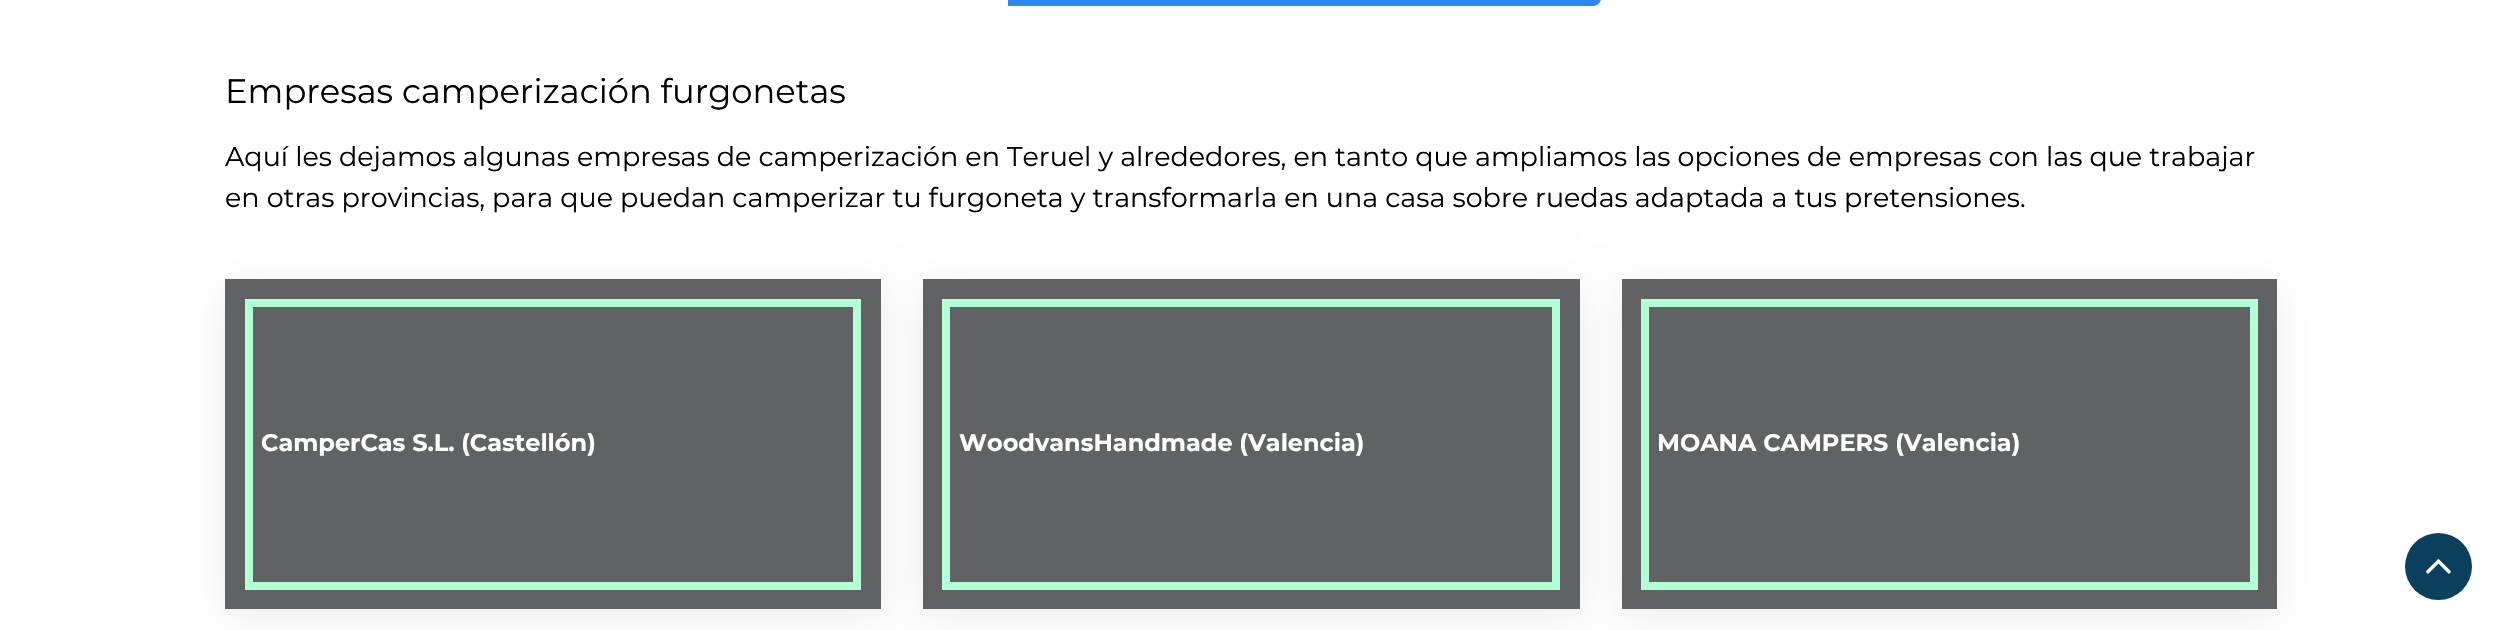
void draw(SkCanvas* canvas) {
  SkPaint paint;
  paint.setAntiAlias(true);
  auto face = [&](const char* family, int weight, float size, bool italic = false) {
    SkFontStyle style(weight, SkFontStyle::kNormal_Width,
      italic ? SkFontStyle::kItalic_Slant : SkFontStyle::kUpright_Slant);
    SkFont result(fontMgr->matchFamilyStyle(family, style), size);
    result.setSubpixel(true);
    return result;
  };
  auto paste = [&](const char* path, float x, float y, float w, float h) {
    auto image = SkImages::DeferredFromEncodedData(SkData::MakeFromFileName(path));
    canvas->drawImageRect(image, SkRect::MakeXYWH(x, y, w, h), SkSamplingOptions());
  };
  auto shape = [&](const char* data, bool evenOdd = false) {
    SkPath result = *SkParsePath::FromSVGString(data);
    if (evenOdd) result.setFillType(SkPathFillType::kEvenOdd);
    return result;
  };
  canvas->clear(0xffffffff);
  paint.setColor(0xff2d89ef);
  canvas->drawPath(shape("M1008-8H1593C1597.5-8 1601-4.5 1601 0V-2C1601 2.5 1597.5 6 1593 6H1008Z"), paint);
  canvas->save();
  canvas->clipPath(shape("M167 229H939V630H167ZM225 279H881V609H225Z", true), true);
  paint.setColor(0x12000000);
  paint.setMaskFilter(SkMaskFilter::MakeBlur(kNormal_SkBlurStyle, 19));
  canvas->drawRect(SkRect::MakeXYWH(225, 287, 656, 330), paint);
  paint.setMaskFilter(nullptr);
  canvas->restore();
  paint.setColor(0xb31c1f21);
  canvas->drawRect(SkRect::MakeXYWH(225, 279, 656, 330), paint);
  paint.setStroke(true);
  paint.setStrokeWidth(8);
  paint.setColor(0xffb3ffd6);
  canvas->drawRect(SkRect::MakeXYWH(249, 303, 608, 283), paint);
  canvas->save();
  canvas->clipPath(shape("M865 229H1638V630H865ZM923 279H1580V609H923Z", true), true);
  paint.setStroke(false);
  paint.setColor(0x12000000);
  paint.setMaskFilter(SkMaskFilter::MakeBlur(kNormal_SkBlurStyle, 19));
  canvas->drawRect(SkRect::MakeXYWH(923, 287, 657, 330), paint);
  paint.setMaskFilter(nullptr);
  canvas->restore();
  paint.setColor(0xb31c1f21);
  canvas->drawRect(SkRect::MakeXYWH(923, 279, 657, 330), paint);
  paint.setStroke(true);
  paint.setColor(0xffb3ffd6);
  canvas->drawRect(SkRect::MakeXYWH(946, 303, 610, 283), paint);
  paint.setStroke(false);
  paint.setColor(0x12000000);
  paint.setMaskFilter(SkMaskFilter::MakeBlur(kNormal_SkBlurStyle, 19));
  canvas->drawRect(SkRect::MakeXYWH(1622, 287, 655, 330), paint);
  paint.setMaskFilter(nullptr);
  paint.setColor(0xff606264);
  canvas->drawRect(SkRect::MakeXYWH(1622, 279, 655, 330), paint);
  paint.setStroke(true);
  paint.setColor(0xffb3ffd6);
  canvas->drawRect(SkRect::MakeXYWH(1645, 303, 609, 283), paint);
  paint.setStroke(false);
  paint.setColor(0xff0a405d);
  canvas->drawCircle(2438.5f, 566.5f, 33.5f, paint);
  paste("img/1.png", 2426, 559, 25, 15);
  auto f0 = face("Montserrat", 400, 33.75f);
  paint.setColor(0xff000000);
  canvas->drawString("Empresas camperización furgonetas", 225, 103, f0, paint);
  auto f1 = face("Montserrat", 400, 27);
  canvas->drawString("Aquí les dejamos algunas empresas de camperización en Teruel y alrededores, en tanto que ampliamos las opciones de empresas con las que trabajar", 225, 166, f1, paint);
  canvas->drawString("en otras provincias, para que puedan camperizar tu furgoneta y transformarla en una casa sobre ruedas adaptada a tus pretensiones.", 225, 207, f1, paint);
  auto f2 = face("Montserrat", 700, 24);
  paint.setColor(0xffffffff);
  {
    const struct { const char* s; float x, y; } items[] = {
      {"CamperCas S.L. (Castellón)", 261, 451},
      {"WoodvansHandmade (Valencia)", 959, 451},
      {"MOANA CAMPERS (Valencia)", 1657, 451},
    };
    for (auto [s, x, y] : items) {
      canvas->drawString(s, x, y, f2, paint);
    }
  }
}
